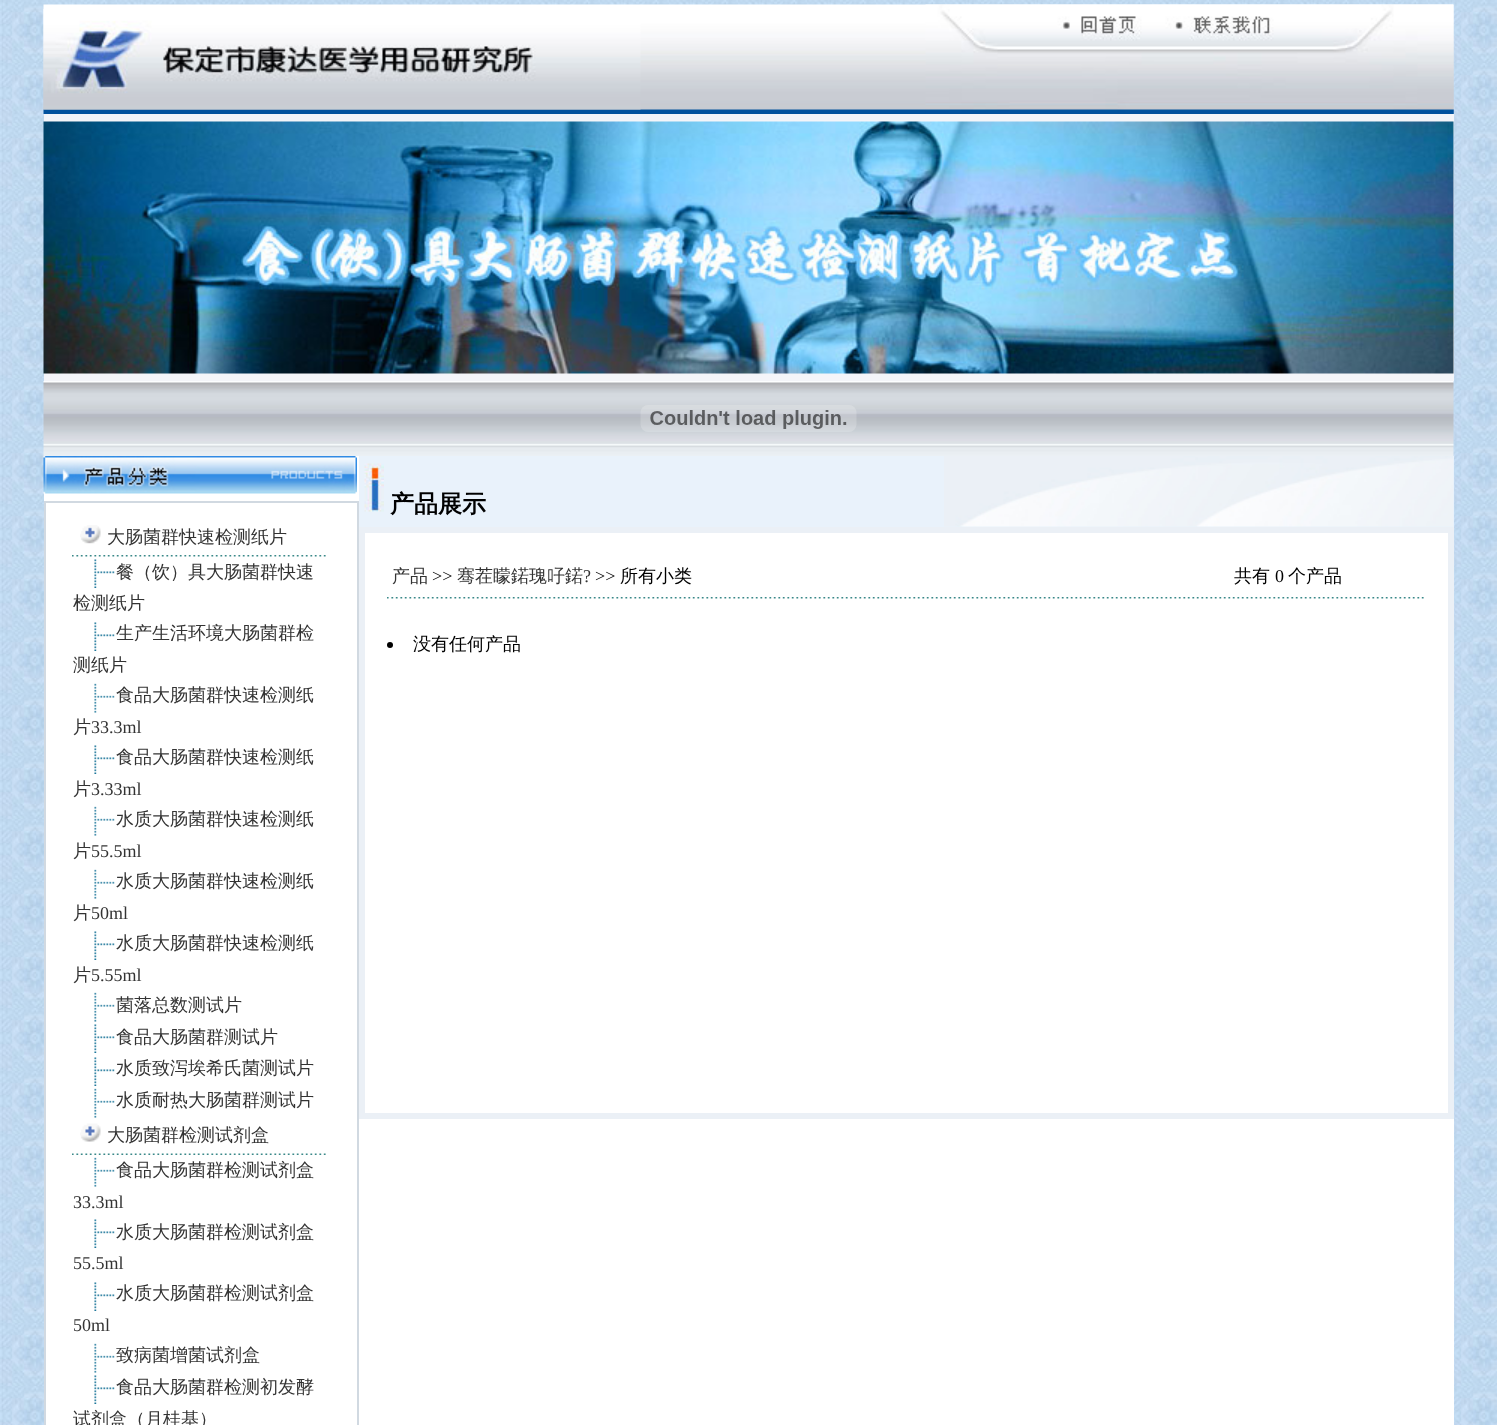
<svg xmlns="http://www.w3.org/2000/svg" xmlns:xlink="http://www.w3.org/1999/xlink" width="1497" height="1425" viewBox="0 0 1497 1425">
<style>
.cls-1{font:500 18px WenQuanYi Zen Hei;fill:#333333}
.cls-2{font:18px Liberation Serif;fill:#333333}
.cls-3{font:bold 24px WenQuanYi Zen Hei;fill:#000000}
.cls-4{font:18px Liberation Serif;fill:#000000}
.cls-5{font:500 18px WenQuanYi Zen Hei;fill:#000000}
</style>
<rect width="100%" height="100%" fill="#ffffff"/>
<image xlink:href="image0.png" x="0" y="0" width="1497" height="1425"/>
<image xlink:href="image1.png" x="43" y="4" width="749" height="110"/>
<image xlink:href="image2.png" x="43" y="9" width="598" height="101"/>
<image xlink:href="image3.png" x="792" y="4" width="662" height="110"/>
<image xlink:href="image4.png" x="925" y="4" width="529" height="110"/>
<rect fill="#f4f5f9" x="44" y="114" width="1410" height="267"/>
<image xlink:href="image5.png" x="43" y="121" width="1411" height="253"/>
<image xlink:href="image6.png" x="43" y="381" width="1411" height="75"/>
<image xlink:href="image7.png" x="640" y="405" width="217" height="27"/>
<rect fill="#ffffff" x="44" y="456" width="1410" height="969"/>
<image xlink:href="image8.png" x="43" y="456" width="314" height="38"/>
<rect fill="none" stroke="#d1d9e1" stroke-width="2" x="45" y="502" width="313" height="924"/>
<image xlink:href="image9.png" x="80" y="525" width="21" height="19"/>
<image xlink:href="image10.png" x="72" y="555" width="254" height="2"/>
<image xlink:href="image11.png" x="94" y="559" width="21" height="29"/>
<image xlink:href="image11.png" x="94" y="622" width="21" height="29"/>
<image xlink:href="image12.png" x="94" y="683" width="21" height="30"/>
<image xlink:href="image11.png" x="94" y="745" width="21" height="29"/>
<image xlink:href="image12.png" x="94" y="806" width="21" height="30"/>
<image xlink:href="image12.png" x="94" y="869" width="21" height="30"/>
<image xlink:href="image11.png" x="94" y="931" width="21" height="29"/>
<image xlink:href="image12.png" x="94" y="992" width="21" height="30"/>
<image xlink:href="image11.png" x="94" y="1024" width="21" height="29"/>
<image xlink:href="image11.png" x="94" y="1057" width="21" height="29"/>
<image xlink:href="image12.png" x="94" y="1088" width="21" height="30"/>
<image xlink:href="image13.png" x="80" y="1123" width="21" height="19"/>
<image xlink:href="image14.png" x="72" y="1153" width="254" height="2"/>
<image xlink:href="image12.png" x="94" y="1157" width="21" height="30"/>
<image xlink:href="image11.png" x="94" y="1219" width="21" height="29"/>
<image xlink:href="image11.png" x="94" y="1282" width="21" height="29"/>
<image xlink:href="image12.png" x="94" y="1343" width="21" height="30"/>
<image xlink:href="image11.png" x="94" y="1375" width="21" height="29"/>
<rect fill="#e9f2fb" x="359" y="456" width="1095" height="71"/>
<image xlink:href="image15.png" x="364" y="463" width="20" height="49"/>
<image xlink:href="image16.png" x="944" y="456" width="509" height="71"/>
<rect fill="none" stroke="#ebf0f6" stroke-width="6" x="362" y="530" width="1089" height="586"/>
<image xlink:href="image17.png" x="387" y="597" width="1037" height="2"/>
<circle fill="#000000" cx="390" cy="645" r="3"/>
<text class="cls-1" x="107" y="543">大肠菌群快速检测纸片</text>
<text class="cls-1" x="116" y="578">餐（饮）具大肠菌群快速</text>
<text class="cls-1" x="73" y="609">检测纸片</text>
<text class="cls-1" x="116" y="639">生产生活环境大肠菌群检</text>
<text class="cls-1" x="73" y="671">测纸片</text>
<text class="cls-1" x="116" y="701">食品大肠菌群快速检测纸</text>
<text class="cls-1" x="73" y="733">片</text>
<text class="cls-2" x="91" y="733">33.3ml</text>
<text class="cls-1" x="116" y="763">食品大肠菌群快速检测纸</text>
<text class="cls-1" x="73" y="795">片</text>
<text class="cls-2" x="91" y="795">3.33ml</text>
<text class="cls-1" x="116" y="825">水质大肠菌群快速检测纸</text>
<text class="cls-1" x="73" y="857">片</text>
<text class="cls-2" x="91" y="857">55.5ml</text>
<text class="cls-1" x="116" y="887">水质大肠菌群快速检测纸</text>
<text class="cls-1" x="73" y="919">片</text>
<text class="cls-2" x="91" y="919">50ml</text>
<text class="cls-1" x="116" y="949">水质大肠菌群快速检测纸</text>
<text class="cls-1" x="73" y="981">片</text>
<text class="cls-2" x="91" y="981">5.55ml</text>
<text class="cls-1"><tspan x="116" y="1011">菌落总数测试片</tspan><tspan x="116" y="1043">食品大肠菌群测试片</tspan><tspan x="116" y="1074">水质致泻埃希氏菌测试片</tspan><tspan x="116" y="1106">水质耐热大肠菌群测试片</tspan></text>
<text class="cls-1" x="107" y="1141">大肠菌群检测试剂盒</text>
<text class="cls-1" x="116" y="1176">食品大肠菌群检测试剂盒</text>
<text class="cls-2" x="73" y="1208">33.3ml</text>
<text class="cls-1" x="116" y="1238">水质大肠菌群检测试剂盒</text>
<text class="cls-2" x="73" y="1269">55.5ml</text>
<text class="cls-1" x="116" y="1299">水质大肠菌群检测试剂盒</text>
<text class="cls-2" x="73" y="1331">50ml</text>
<text class="cls-1"><tspan x="116" y="1361">致病菌增菌试剂盒</tspan><tspan x="116" y="1393">食品大肠菌群检测初发酵</tspan></text>
<text class="cls-1" x="73" y="1425">试剂盒（月桂基）</text>
<text class="cls-3" x="390" y="512">产品展示</text>
<text class="cls-1" x="392" y="582">产品</text>
<text class="cls-4" x="432" y="582">&gt;&gt;</text>
<text class="cls-1" x="457" y="582">骞茬矇鍩瑰吇鍩</text>
<text class="cls-2" x="583" y="582">?</text>
<text class="cls-4" x="595" y="582">&gt;&gt;</text>
<text class="cls-5" x="620" y="582">所有小类</text>
<text class="cls-5" x="1234" y="582">共有</text>
<text class="cls-4" x="1275" y="582">0</text>
<text class="cls-5" x="1288" y="582">个产品</text>
<text class="cls-5" x="413" y="650">没有任何产品</text>
</svg>
